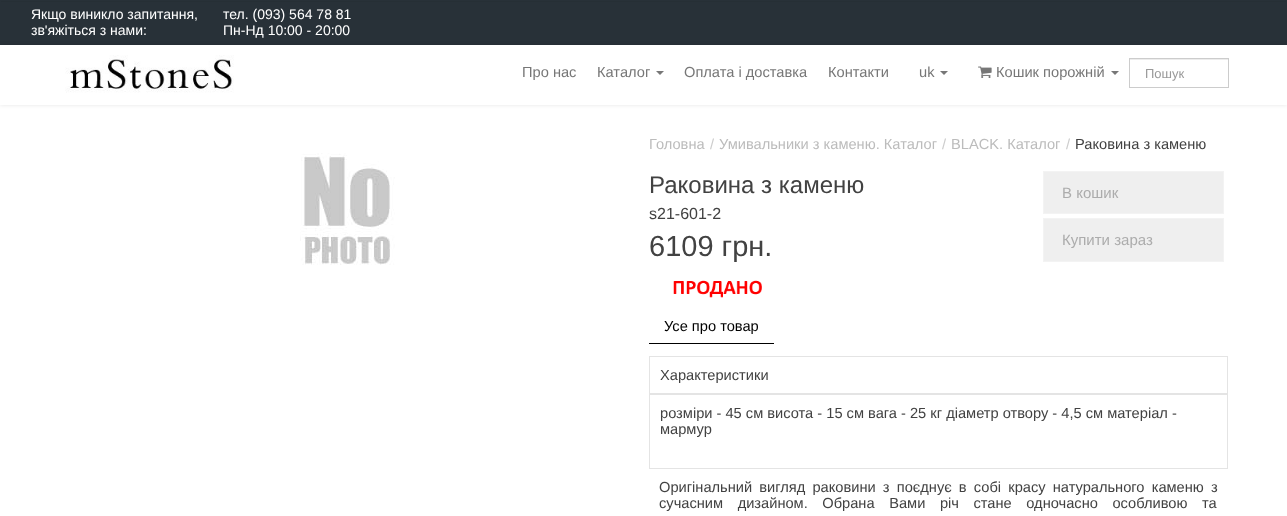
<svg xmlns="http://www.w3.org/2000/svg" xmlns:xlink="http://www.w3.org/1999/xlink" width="1287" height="516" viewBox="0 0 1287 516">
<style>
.cls-1{font:14px Liberation Sans;fill:#ffffff}
.cls-2{font:14.65px Liberation Sans;fill:#777777}
.cls-3{font:13px Liberation Sans;fill:#999999}
.cls-4{font:14.65px Liberation Sans;fill:#bcbcbc}
.cls-5{font:14.65px Liberation Sans;fill:#cccccc}
.cls-6{font:14.65px Liberation Sans;fill:#424242}
.cls-7{font:24px Liberation Sans;fill:#424242}
.cls-8{font:16px Liberation Sans;fill:#424242}
.cls-9{font:29px Liberation Sans;fill:#424242}
.cls-10{font:15px Liberation Sans;fill:#acacac}
.cls-11{font:14.65px Liberation Sans;fill:#000000}
</style>
<defs>
<clipPath id="clip1"><path d="M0 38H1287V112H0ZM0 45H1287V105H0Z" clip-rule="evenodd"/></clipPath>
</defs>
<rect width="100%" height="100%" fill="#ffffff"/>
<rect fill="#283138" x="0" y="0" width="1287" height="45"/>
<rect fill="#262f35" x="1" y="1" width="1285" height="1"/>
<g clip-path="url(#clip1)">
<rect fill="#000000" fill-opacity="0.1" filter="blur(2px)" x="0" y="45" width="1287" height="60"/>
</g>
<image xlink:href="image0.png" x="65" y="55" width="169" height="38"/>
<path fill="#777777" d="M656 71H664L660 75Z"/>
<path fill="#777777" d="M940 71H948L944 75Z"/>
<image xlink:href="image1.png" x="978" y="66" width="14" height="12"/>
<path fill="#777777" d="M1111 71H1119L1115 75Z"/>
<rect fill="#ececec" x="1130" y="59" width="98" height="1"/>
<rect fill="none" stroke="#cccccc" x="1129.5" y="58.5" width="99" height="29"/>
<image xlink:href="image2.png" x="300" y="153" width="95" height="112"/>
<rect fill="#efefef" stroke="#f3f3f3" x="1043.5" y="171.5" width="180" height="42"/>
<rect fill="#efefef" stroke="#f3f3f3" x="1043.5" y="218.5" width="180" height="43"/>
<image xlink:href="image3.png" x="673" y="280" width="89" height="18"/>
<rect fill="#000000" x="649" y="343" width="125" height="1"/>
<rect fill="none" stroke="#e4e4e4" x="649.5" y="356.5" width="578" height="37"/>
<rect fill="none" stroke="#e4e4e4" x="649.5" y="394.5" width="578" height="74"/>
<text class="cls-1"><tspan x="31" y="19">Якщо виникло запитання,</tspan><tspan x="31" y="35">зв'яжіться з нами:</tspan></text>
<text class="cls-1"><tspan x="223" y="19">тел. (093) 564 78 81</tspan><tspan x="223" y="35">Пн-Нд 10:00 - 20:00</tspan></text>
<text class="cls-2" x="522" y="77">Про нас</text>
<text class="cls-2" x="597" y="77">Каталог</text>
<text class="cls-2" x="684" y="77">Оплата і доставка</text>
<text class="cls-2" x="828" y="77">Контакти</text>
<text class="cls-2" x="919" y="77">uk</text>
<text class="cls-2" x="996" y="77">Кошик порожній</text>
<text class="cls-3" x="1145" y="78">Пошук</text>
<text class="cls-4" x="649" y="149">Головна</text>
<text class="cls-5" x="710" y="149">/</text>
<text class="cls-4" x="719" y="149">Умивальники з каменю. Каталог</text>
<text class="cls-5" x="942" y="149">/</text>
<text class="cls-4" x="951" y="149">BLACK. Каталог</text>
<text class="cls-5" x="1066" y="149">/</text>
<text class="cls-6" x="1075" y="149">Раковина з каменю</text>
<text class="cls-7" x="649" y="193">Раковина з каменю</text>
<text class="cls-8" x="649" y="219">s21-601-2</text>
<text class="cls-9" x="649" y="256">6109 грн.</text>
<text class="cls-10" x="1062" y="198">В кошик</text>
<text class="cls-10" x="1062" y="245">Купити зараз</text>
<text class="cls-11" x="664" y="331">Усе про товар</text>
<text class="cls-6" x="660" y="380">Характеристики</text>
<text class="cls-6"><tspan x="660" y="418">розміри - 45 см висота - 15 см вага - 25 кг діаметр отвору - 4,5 см матеріал -</tspan><tspan x="660" y="434">мармур</tspan></text>
<text class="cls-6"><tspan x="659" y="492" word-spacing="3.1">Оригінальний вигляд раковини з поєднує в собі красу натурального каменю з</tspan><tspan x="659" y="508" word-spacing="10.5">сучасним дизайном. Обрана Вами річ стане одночасно особливою та</tspan></text>
</svg>
